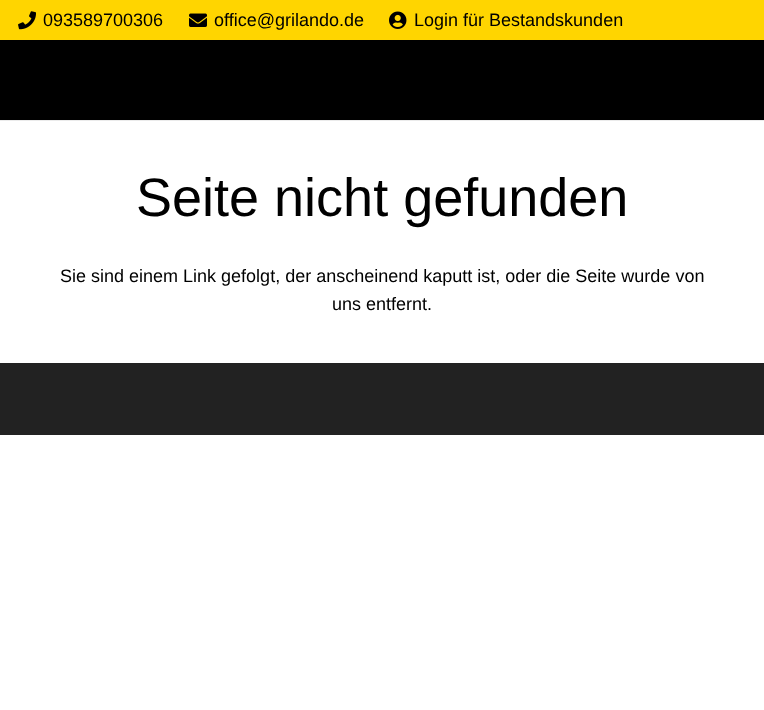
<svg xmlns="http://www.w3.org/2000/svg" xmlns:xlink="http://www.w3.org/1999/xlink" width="764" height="710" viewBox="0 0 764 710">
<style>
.cls-1{font:18px Liberation Sans;fill:#000000}
.cls-2{font:54px Liberation Sans;fill:#000000}
</style>
<rect width="100%" height="100%" fill="#ffffff"/>
<rect fill="#ffd500" x="0" y="0" width="764" height="40"/>
<image xlink:href="image0.png" x="18" y="11" width="18" height="19"/>
<image xlink:href="image1.png" x="189" y="13" width="18" height="14"/>
<image xlink:href="image2.png" x="389" y="11" width="18" height="18"/>
<rect fill="#ebebeb" x="0" y="120" width="764" height="1"/>
<rect fill="#000000" x="0" y="40" width="764" height="80"/>
<rect fill="#222222" x="0" y="363" width="764" height="72"/>
<text class="cls-1" x="43" y="26">093589700306</text>
<text class="cls-1" x="214" y="26">office@grilando.de</text>
<text class="cls-1" x="414" y="26">Login für Bestandskunden</text>
<text class="cls-2" x="136" y="216">Seite nicht gefunden</text>
<text class="cls-1" x="60" y="282">Sie sind einem Link gefolgt, der anscheinend kaputt ist, oder die Seite wurde von</text>
<text class="cls-1" x="332" y="310">uns entfernt.</text>
</svg>
